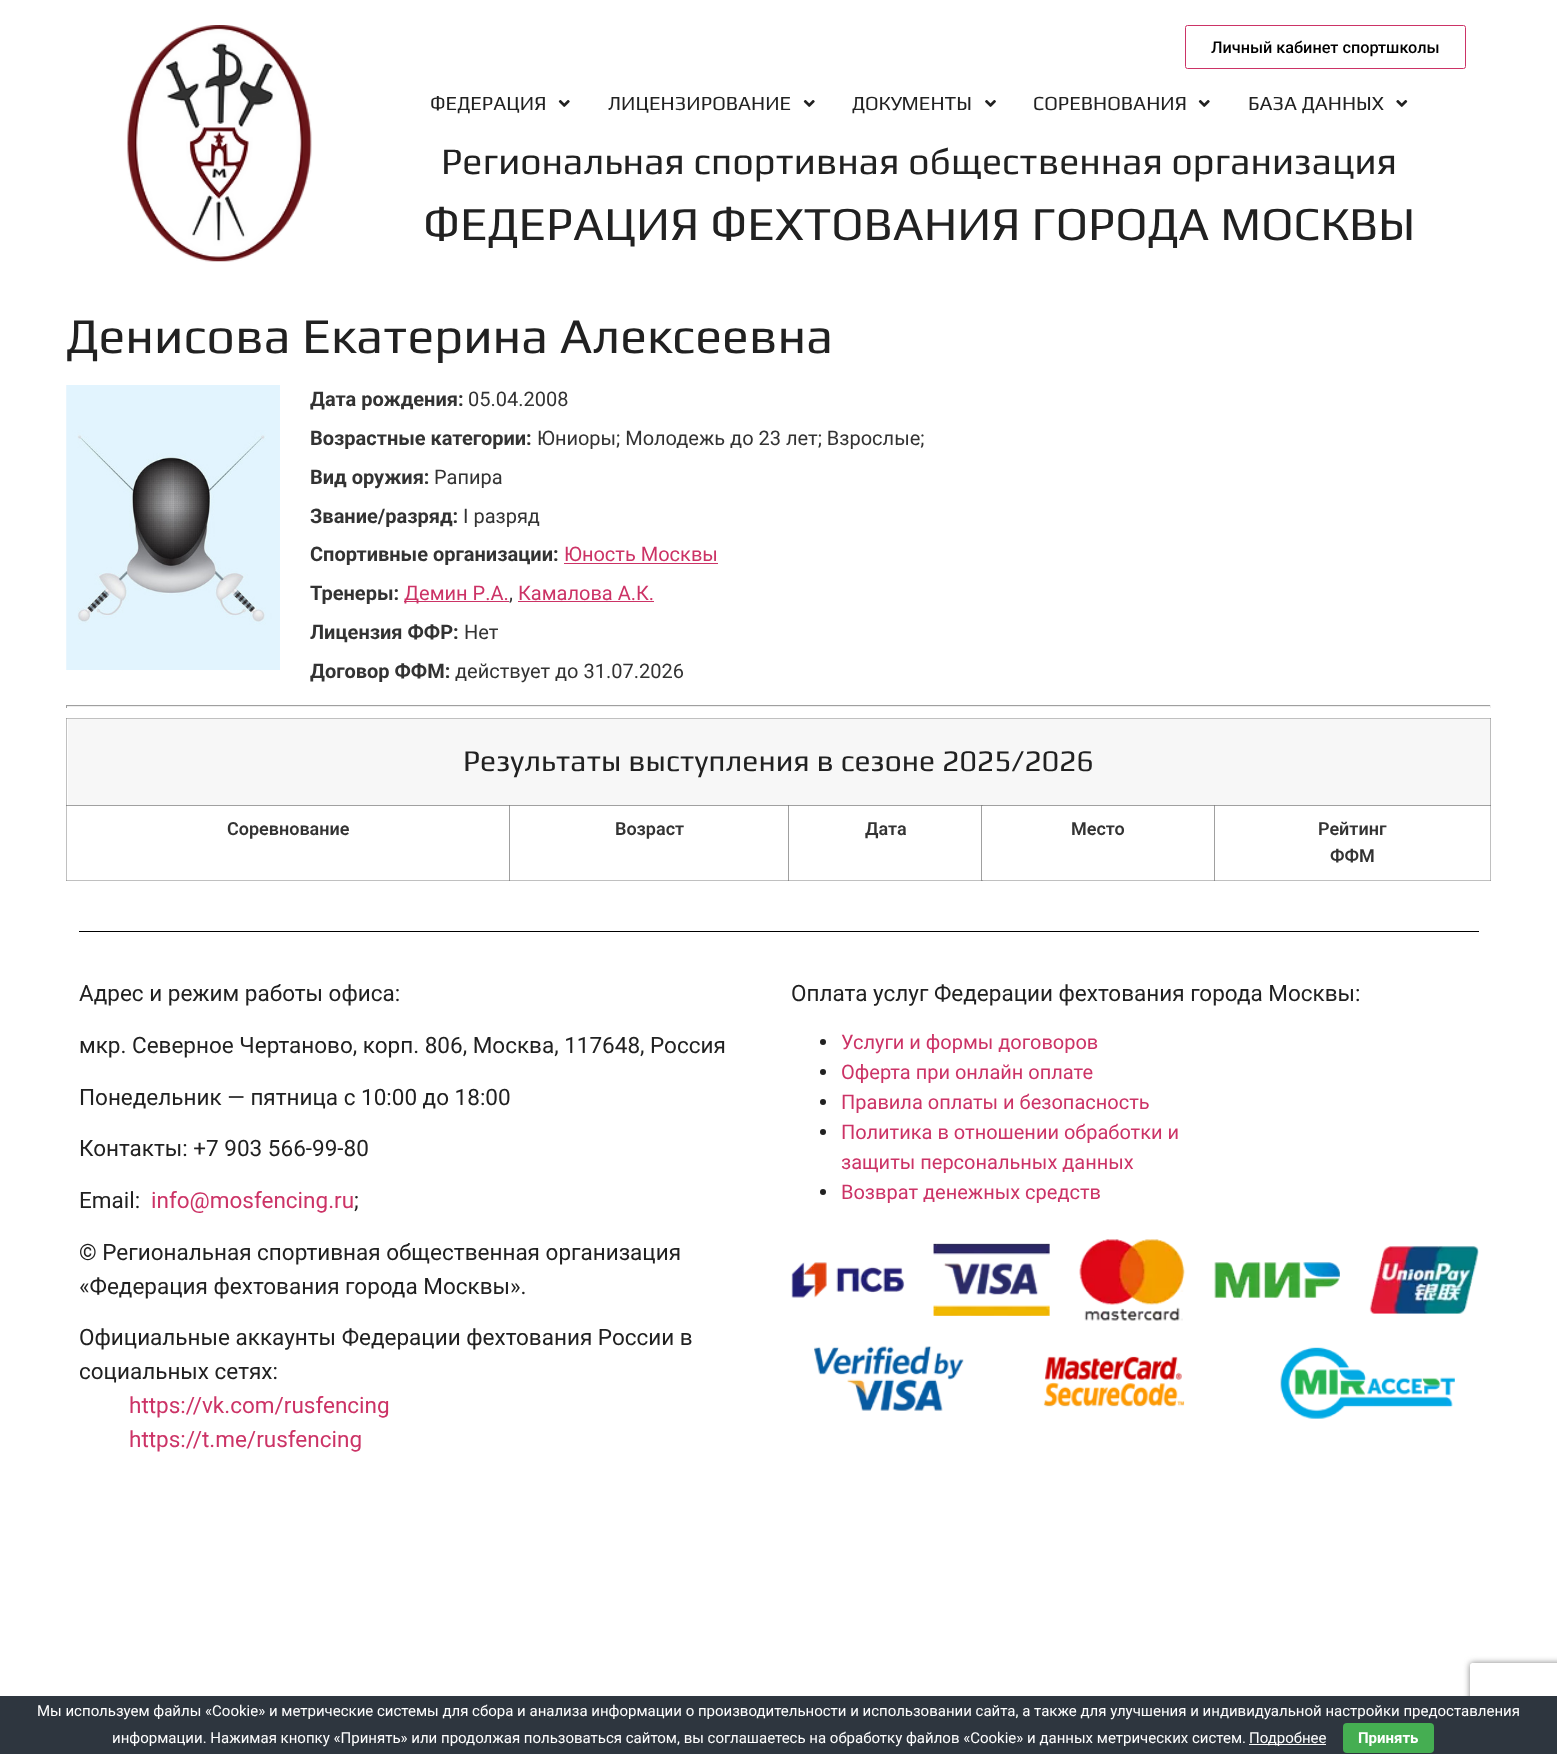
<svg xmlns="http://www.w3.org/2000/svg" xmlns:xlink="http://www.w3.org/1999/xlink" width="1557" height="1754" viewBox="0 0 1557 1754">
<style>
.cls-1{font:500 16.25px Roboto;fill:#000000}
.cls-2{font:20px Play;fill:#212121}
.cls-3{font:37.5px Play;fill:#212121}
.cls-4{font:47.5px Play;fill:#212121}
.cls-5{font:50px Play;fill:#212121}
.cls-6{font:bold 20px Roboto;fill:#333333}
.cls-7{font:20px Roboto;fill:#333333}
.cls-8{font:20px Roboto;fill:#cc3366}
.cls-9{font:30px Play;fill:#212121}
.cls-10{font:600 18px Roboto;fill:#333333}
.cls-11{font:22.5px Roboto;fill:#212121}
.cls-12{font:22.5px Roboto;fill:#cc3366}
.cls-13{font:15px Roboto;fill:#ffffff}
.cls-14{font:bold 15px Roboto;fill:#ffffff}
</style>
<defs>
<clipPath id="clip1"><path d="M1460 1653H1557V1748H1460ZM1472.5 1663H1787.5C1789 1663 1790 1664 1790 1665.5V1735.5C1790 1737 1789 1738 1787.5 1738H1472.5C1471 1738 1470 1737 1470 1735.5V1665.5C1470 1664 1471 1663 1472.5 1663Z" clip-rule="evenodd"/></clipPath>
</defs>
<rect width="100%" height="100%" fill="#ffffff"/>
<rect fill="#c0c0c0" x="66" y="718" width="1" height="163"/>
<rect fill="#c0c0c0" x="66" y="880" width="444" height="1"/>
<rect fill="#a0a0a0" x="66" y="880" width="1" height="1"/>
<rect fill="#a0a0a0" x="66" y="805" width="444" height="1"/>
<rect fill="#888888" x="66" y="805" width="1" height="1"/>
<rect fill="#a0a0a0" x="509" y="805" width="1" height="76"/>
<rect fill="#c0c0c0" x="509" y="880" width="280" height="1"/>
<rect fill="#888888" x="509" y="880" width="1" height="1"/>
<rect fill="#a0a0a0" x="509" y="805" width="280" height="1"/>
<rect fill="#848484" x="509" y="805" width="1" height="1"/>
<rect fill="#a0a0a0" x="788" y="805" width="1" height="76"/>
<rect fill="#c0c0c0" x="788" y="880" width="195" height="1"/>
<rect fill="#888888" x="788" y="880" width="1" height="1"/>
<rect fill="#a0a0a0" x="788" y="805" width="195" height="1"/>
<rect fill="#848484" x="788" y="805" width="1" height="1"/>
<rect fill="#a0a0a0" x="981" y="805" width="1" height="76"/>
<rect fill="#c0c0c0" x="981" y="880" width="234" height="1"/>
<rect fill="#a0a0a0" x="981" y="880" width="2" height="1"/>
<rect fill="#888888" x="981" y="880" width="1" height="1"/>
<rect fill="#a0a0a0" x="981" y="805" width="234" height="1"/>
<rect fill="#909090" x="981" y="805" width="2" height="1"/>
<rect fill="#848484" x="981" y="805" width="1" height="1"/>
<rect fill="#a0a0a0" x="1214" y="805" width="1" height="76"/>
<rect fill="#c0c0c0" x="1214" y="880" width="277" height="1"/>
<rect fill="#888888" x="1214" y="880" width="1" height="1"/>
<rect fill="#c0c0c0" x="1490" y="805" width="1" height="76"/>
<rect fill="#a0a0a0" x="1490" y="880" width="1" height="1"/>
<image xlink:href="image0.png" x="127" y="25" width="185" height="237"/>
<rect fill="none" stroke="#cc3366" x="1185.5" y="25.5" width="280" height="43" rx="2"/>
<image xlink:href="image1.png" x="558" y="100" width="12" height="7"/>
<image xlink:href="image1.png" x="803" y="100" width="12" height="7"/>
<image xlink:href="image2.png" x="985" y="100" width="11" height="7"/>
<image xlink:href="image1.png" x="1198" y="100" width="12" height="7"/>
<image xlink:href="image3.png" x="1396" y="100" width="12" height="7"/>
<image xlink:href="image4.png" x="66" y="385" width="214" height="285"/>
<rect fill="#cc3366" x="564" y="563" width="154" height="1"/>
<rect fill="#cc3366" x="404" y="601" width="105" height="1"/>
<rect fill="#cc3366" x="518" y="601" width="136" height="1"/>
<rect fill="#9f9f9f" x="66" y="705" width="1425" height="1"/>
<rect fill="#eeeeee" x="1490" y="705" width="1" height="3"/>
<rect fill="#eeeeee" x="66" y="706" width="1425" height="1"/>
<rect fill="#9f9f9f" x="66" y="705" width="1" height="3"/>
<rect fill="#f7f7f7" x="68" y="719" width="1422" height="86"/>
<rect fill="#bcbcbc" x="1490" y="719" width="1" height="86"/>
<rect fill="#c0c0c0" x="66" y="718" width="1425" height="1"/>
<rect fill="#a0a0a0" x="66" y="718" width="1" height="1"/>
<rect fill="#a0a0a0" x="1490" y="718" width="1" height="1"/>
<rect fill="#a0a0a0" x="1214" y="805" width="277" height="1"/>
<rect fill="#848484" x="1214" y="805" width="1" height="1"/>
<rect fill="#888888" x="1490" y="805" width="1" height="1"/>
<rect fill="#000000" x="79" y="931" width="1400" height="1"/>
<circle fill="#212121" cx="823" cy="1042" r="3"/>
<circle fill="#212121" cx="823" cy="1072" r="3"/>
<circle fill="#212121" cx="823" cy="1102" r="3"/>
<circle fill="#212121" cx="823" cy="1132" r="3"/>
<circle fill="#212121" cx="823" cy="1192" r="3"/>
<image xlink:href="image5.png" x="791" y="1239" width="688" height="180"/>
<g clip-path="url(#clip1)">
<rect fill="#808080" filter="blur(3px)" x="1470" y="1663" width="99" height="75" rx="2.5"/>
</g>
<rect fill="#2e363f" x="0" y="1696" width="1557" height="58"/>
<rect fill="#ffffff" x="1249" y="1744" width="77" height="1"/>
<rect fill="#45ae52" x="1343" y="1723" width="91" height="30" rx="4"/>
<text class="cls-1" x="1211" y="53">Личный кабинет спортшколы</text>
<text class="cls-2" x="430" y="110">ФЕДЕРАЦИЯ</text>
<text class="cls-2" x="608" y="110">ЛИЦЕНЗИРОВАНИЕ</text>
<text class="cls-2" x="852" y="110">ДОКУМЕНТЫ</text>
<text class="cls-2" x="1033" y="110">СОРЕВНОВАНИЯ</text>
<text class="cls-2" x="1248" y="110">БАЗА ДАННЫХ</text>
<text class="cls-3" x="441" y="174">Региональная спортивная общественная организация</text>
<text class="cls-4" x="423" y="240">ФЕДЕРАЦИЯ ФЕХТОВАНИЯ ГОРОДА МОСКВЫ</text>
<text class="cls-5" x="66" y="353">Денисова Екатерина Алексеевна</text>
<text class="cls-6" x="310" y="406">Дата рождения:</text>
<text class="cls-7" x="468" y="406">05.04.2008</text>
<text class="cls-6" x="310" y="445">Возрастные категории:</text>
<text class="cls-7" x="537" y="445">Юниоры; Молодежь до 23 лет; Взрослые;</text>
<text class="cls-6" x="310" y="484">Вид оружия:</text>
<text class="cls-7" x="434" y="484">Рапира</text>
<text class="cls-6" x="310" y="523">Звание/разряд:</text>
<text class="cls-7" x="463" y="523">I разряд</text>
<text class="cls-6" x="310" y="561">Спортивные организации:</text>
<text class="cls-8" x="564" y="561">Юность Москвы</text>
<text class="cls-6" x="310" y="600">Тренеры:</text>
<text class="cls-8" x="404" y="600">Демин Р.А.</text>
<text class="cls-7" x="509" y="600">,</text>
<text class="cls-8" x="518" y="600">Камалова А.К.</text>
<text class="cls-6" x="310" y="639">Лицензия ФФР:</text>
<text class="cls-7" x="464" y="639">Нет</text>
<text class="cls-6" x="310" y="678">Договор ФФМ:</text>
<text class="cls-7" x="455" y="678">действует до 31.07.2026</text>
<text class="cls-9" x="463" y="771">Результаты выступления в сезоне 2025/2026</text>
<text class="cls-10" x="227" y="835">Соревнование</text>
<text class="cls-10" x="615" y="835">Возраст</text>
<text class="cls-10" x="865" y="835">Дата</text>
<text class="cls-10" x="1071" y="835">Место</text>
<text class="cls-10" x="1318" y="835">Рейтинг</text>
<text class="cls-10" x="1330" y="862">ФФМ</text>
<text class="cls-11" x="79" y="1001">Адрес и режим работы офиса:</text>
<text class="cls-11" x="79" y="1053">мкр. Северное Чертаново, корп. 806, Москва, 117648, Россия</text>
<text class="cls-11" x="79" y="1105">Понедельник — пятница с 10:00 до 18:00</text>
<text class="cls-11" x="79" y="1156">Контакты: +7 903 566-99-80</text>
<text class="cls-11" x="79" y="1208">Email:</text>
<text class="cls-12" x="151" y="1208">info@mosfencing.ru</text>
<text class="cls-11" x="354" y="1208">;</text>
<text class="cls-11"><tspan x="79" y="1260">© Региональная спортивная общественная организация</tspan><tspan x="79" y="1294">«Федерация фехтования города Москвы».</tspan></text>
<text class="cls-11"><tspan x="79" y="1345">Официальные аккаунты Федерации фехтования России в</tspan><tspan x="79" y="1379">социальных сетях:</tspan></text>
<text class="cls-12"><tspan x="129" y="1413">https://vk.com/rusfencing</tspan><tspan x="129" y="1447">https://t.me/rusfencing</tspan></text>
<text class="cls-11" x="791" y="1001">Оплата услуг Федерации фехтования города Москвы:</text>
<text class="cls-8"><tspan x="841" y="1049">Услуги и формы договоров</tspan><tspan x="841" y="1079">Оферта при онлайн оплате</tspan><tspan x="841" y="1109">Правила оплаты и безопасность</tspan><tspan x="841" y="1139">Политика в отношении обработки и</tspan><tspan x="841" y="1169">защиты персональных данных</tspan><tspan x="841" y="1199">Возврат денежных средств</tspan></text>
<text class="cls-13" x="37" y="1716">Мы используем файлы «Cookie» и метрические системы для сбора и анализа информации о производительности и использовании сайта, а также для улучшения и индивидуальной настройки предоставления</text>
<text class="cls-13" x="112" y="1743">информации. Нажимая кнопку «Принять» или продолжая пользоваться сайтом, вы соглашаетесь на обработку файлов «Cookie» и данных метрических систем.</text>
<text class="cls-13" x="1249" y="1743">Подробнее</text>
<text class="cls-14" x="1358" y="1743">Принять</text>
</svg>
